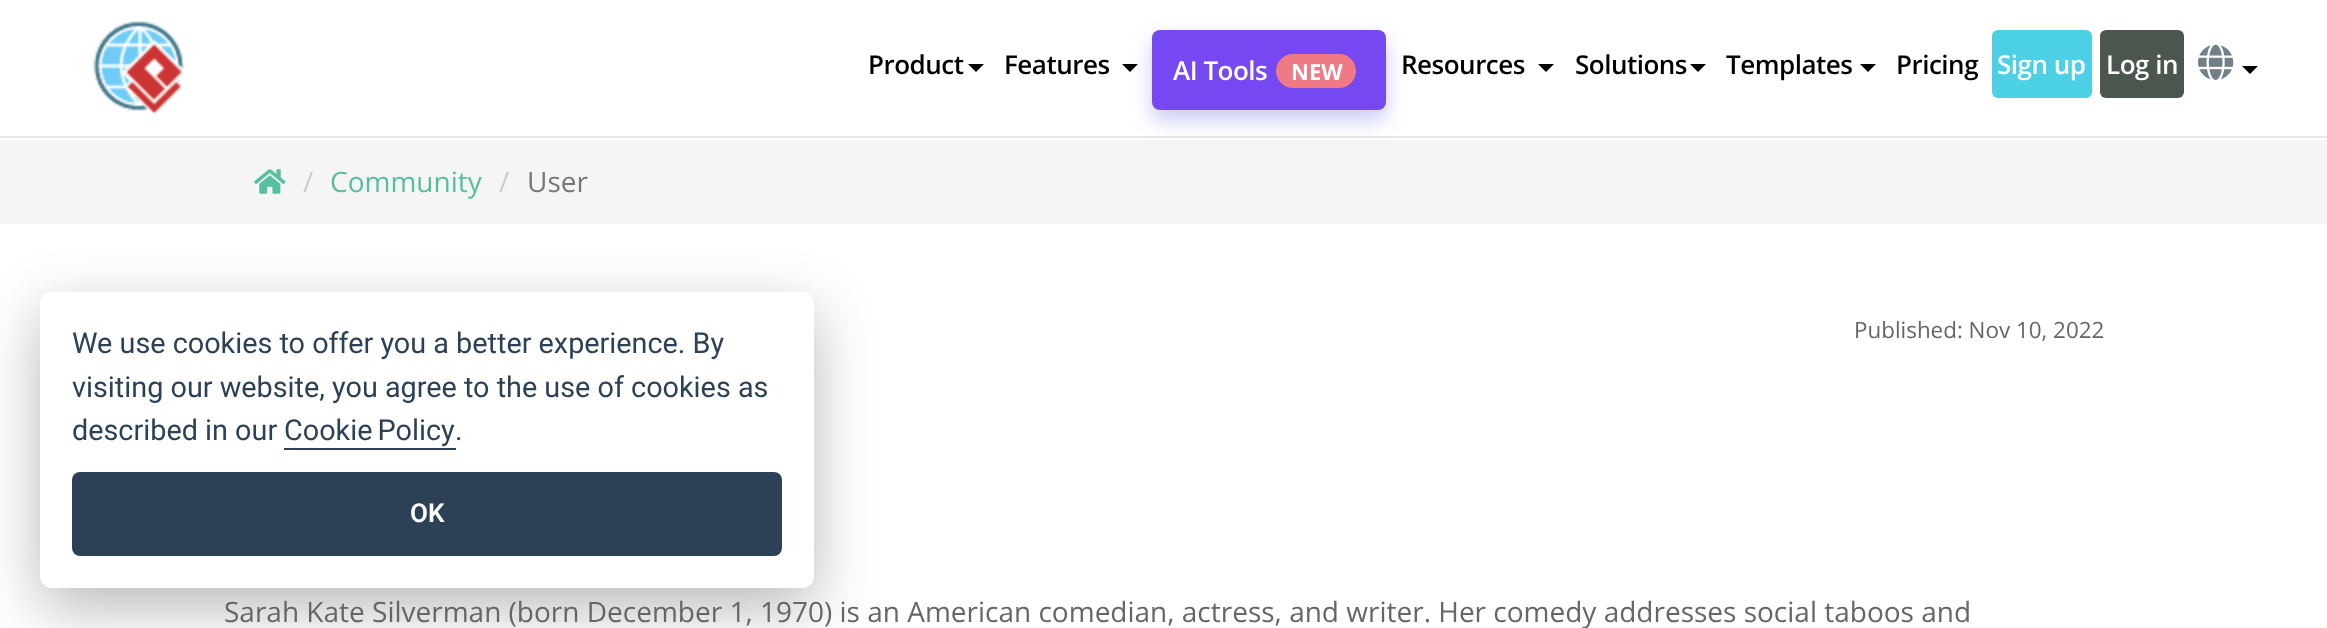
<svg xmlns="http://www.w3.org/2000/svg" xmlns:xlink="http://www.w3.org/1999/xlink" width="2327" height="628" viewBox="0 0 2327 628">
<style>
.cls-1{font:600 26px Open Sans;letter-spacing:-0.5px;fill:#000000}
.cls-2{font:600 26px Open Sans;letter-spacing:-0.5px;fill:#ffffff}
.cls-3{font:bold 22px Open Sans;fill:#ffffff}
.cls-4{font:28px Open Sans;fill:#cccccc}
.cls-5{font:28px Open Sans;fill:#57bea2}
.cls-6{font:28px Open Sans;fill:#777777}
.cls-7{font:22.4px Open Sans;fill:#666666}
.cls-8{font:28px Open Sans;fill:#666666}
.cls-9{font:28.8px Roboto;fill:#2d4156}
.cls-10{font:600 26px Roboto;fill:#ffffff}
</style>
<rect width="100%" height="100%" fill="#ffffff"/>
<rect fill="#e7e7e7" x="0" y="136" width="2327" height="2"/>
<image xlink:href="image0.png" x="93" y="21" width="92" height="94"/>
<path fill="#000000" d="M968 64H984L976 72Z"/>
<path fill="#000000" d="M1122 64H1138L1130 72Z"/>
<rect fill="#f5f5f5" x="0" y="140" width="2327" height="84"/>
<rect fill="#4c4ee5" fill-opacity="0.3" filter="blur(10px)" x="1152" y="40" width="234" height="80" rx="8"/>
<rect fill="#7548f1" x="1152" y="30" width="234" height="80" rx="8"/>
<rect fill="#ef7a85" x="1276" y="54" width="80" height="34" rx="17"/>
<path fill="#000000" d="M1538 64H1554L1546 72Z"/>
<path fill="#000000" d="M1690 64H1706L1698 72Z"/>
<path fill="#000000" d="M1860 64H1876L1868 72Z"/>
<rect fill="#4cd0e5" x="1992" y="30" width="100" height="68" rx="6"/>
<rect fill="#4a564e" x="2100" y="30" width="84" height="68" rx="6"/>
<image xlink:href="image1.png" x="2198" y="44" width="36" height="36"/>
<path fill="#000000" d="M2242 66H2258L2250 74Z"/>
<image xlink:href="image2.png" x="254" y="169" width="32" height="25"/>
<rect fill="#020203" fill-opacity="0.28" filter="blur(30px)" x="40" y="312" width="774" height="296" rx="12"/>
<rect fill="#ffffff" x="40" y="292" width="774" height="296" rx="12"/>
<rect fill="#2d4156" x="284" y="448" width="172" height="2"/>
<rect fill="#2d4156" x="72" y="472" width="710" height="84" rx="8"/>
<text class="cls-1" x="868" y="74">Product</text>
<text class="cls-1" x="1004" y="74">Features</text>
<text class="cls-2" x="1173" y="80">AI Tools</text>
<text class="cls-3" x="1291" y="80">NEW</text>
<text class="cls-1" x="1401" y="74">Resources</text>
<text class="cls-1" x="1575" y="74">Solutions</text>
<text class="cls-1" x="1726" y="74">Templates</text>
<text class="cls-1" x="1896" y="74">Pricing</text>
<text class="cls-2" x="1997" y="74">Sign up</text>
<text class="cls-2" x="2106" y="74">Log in</text>
<text class="cls-4" x="303" y="192">/</text>
<text class="cls-5" x="330" y="192">Community</text>
<text class="cls-4" x="499" y="192">/</text>
<text class="cls-6" x="527" y="192">User</text>
<text class="cls-7" x="1854" y="338">Published: Nov 10, 2022</text>
<text class="cls-8" x="224" y="622">Sarah Kate Silverman (born December 1, 1970) is an American comedian, actress, and writer. Her comedy addresses social taboos and</text>
<text class="cls-9"><tspan x="72" y="353">We use cookies to offer you a better experience. By</tspan><tspan x="72" y="397">visiting our website, you agree to the use of cookies as</tspan><tspan x="72" y="440">described in our</tspan></text>
<text class="cls-9" x="284" y="440" word-spacing="-2">Cookie Policy</text>
<text class="cls-9" x="455" y="440">.</text>
<text class="cls-10" x="410" y="522">OK</text>
</svg>
